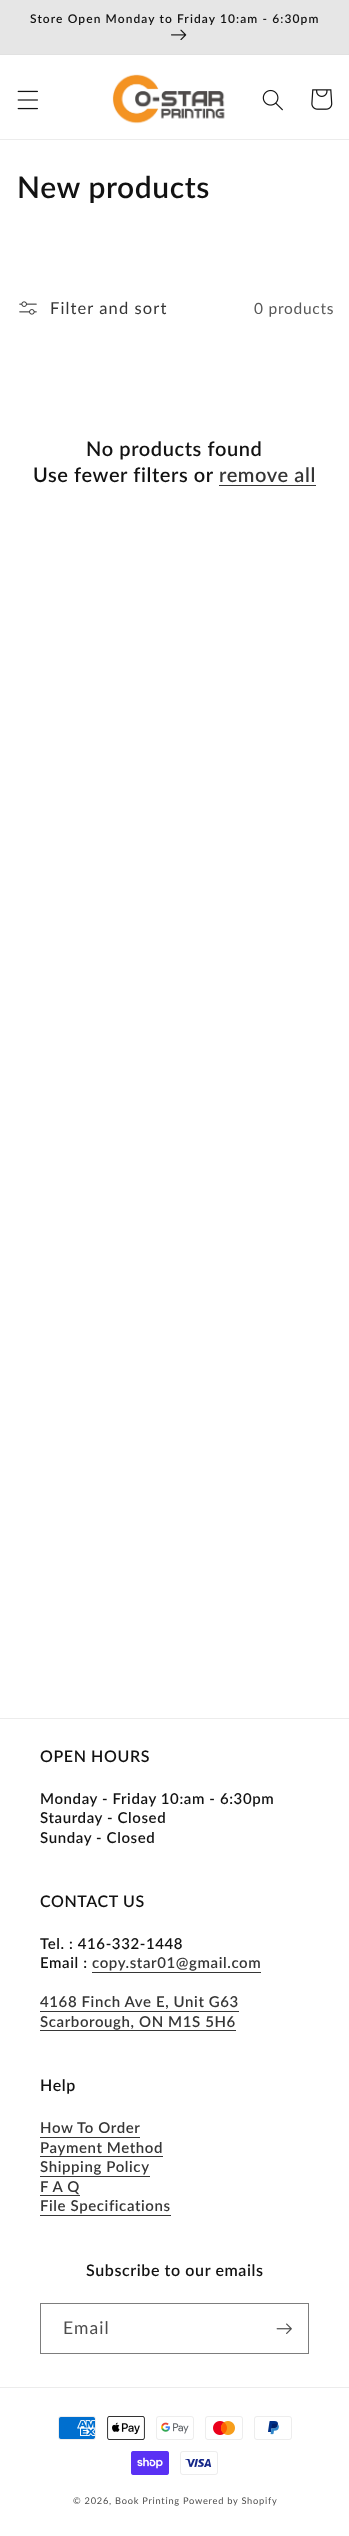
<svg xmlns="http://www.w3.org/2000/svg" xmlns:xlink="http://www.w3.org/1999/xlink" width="349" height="2536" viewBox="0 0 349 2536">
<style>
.cls-1{font:600 12px Lato;letter-spacing:1.1px;fill:#121212}
.cls-2{font:600 30px Lato;letter-spacing:0.6px;fill:#121212}
.cls-3{font:16.5px Lato;letter-spacing:1.1px;fill:#363636}
.cls-4{font:15.5px Lato;letter-spacing:0.75px;fill:#595959}
.cls-5{font:600 20px Lato;letter-spacing:0.6px;fill:#121212}
.cls-6{font:600 20px Lato;letter-spacing:0.6px;fill:#363636}
.cls-7{font:600 16px Lato;letter-spacing:0.6px;fill:#121212}
.cls-8{font:600 15px Lato;letter-spacing:0.6px;fill:#121212}
.cls-9{font:600 15px Lato;letter-spacing:0.6px;fill:#363636}
.cls-10{font:17.5px Lato;letter-spacing:1.1px;fill:#4d4d4d}
.cls-11{font:9.25px Lato;letter-spacing:0.75px;fill:#4d4d4d}
</style>
<rect width="100%" height="100%" fill="#ffffff"/>
<rect fill="#e1e1e1" x="0" y="54" width="349" height="1"/>
<rect fill="#e6e6e6" x="0" y="0" width="349" height="54"/>
<image xlink:href="image0.png" x="171" y="29" width="16" height="11"/>
<rect fill="#ececec" x="0" y="139" width="349" height="1"/>
<image xlink:href="image1.png" x="17" y="90" width="21" height="20"/>
<image xlink:href="image2.png" x="112" y="74" width="113" height="50"/>
<image xlink:href="image3.png" x="262" y="89" width="21" height="22"/>
<image xlink:href="image4.png" x="311" y="89" width="22" height="21"/>
<image xlink:href="image5.png" x="19" y="301" width="18" height="14"/>
<rect fill="#363636" x="219" y="485" width="97" height="1"/>
<rect fill="#ececec" x="0" y="1718" width="349" height="1"/>
<rect fill="#363636" x="92" y="1972" width="169" height="1"/>
<rect fill="#363636" x="40" y="2011" width="199" height="1"/>
<rect fill="#363636" x="40" y="2030" width="196" height="1"/>
<rect fill="#363636" x="40" y="2137" width="100" height="1"/>
<rect fill="#363636" x="40" y="2156" width="123" height="1"/>
<rect fill="#363636" x="40" y="2176" width="110" height="1"/>
<rect fill="#363636" x="40" y="2195" width="40" height="1"/>
<rect fill="#363636" x="40" y="2215" width="131" height="1"/>
<rect fill="none" stroke="#7d7d7d" x="40.5" y="2303.5" width="268" height="50"/>
<image xlink:href="image6.png" x="276" y="2323" width="16" height="11"/>
<rect fill="#ececec" x="0" y="2387" width="349" height="1"/>
<image xlink:href="image7.png" x="58" y="2416" width="38" height="24"/>
<image xlink:href="image8.png" x="107" y="2416" width="38" height="24"/>
<image xlink:href="image9.png" x="156" y="2416" width="38" height="24"/>
<image xlink:href="image10.png" x="205" y="2416" width="38" height="24"/>
<image xlink:href="image11.png" x="254" y="2416" width="38" height="24"/>
<image xlink:href="image12.png" x="131" y="2451" width="38" height="24"/>
<image xlink:href="image13.png" x="180" y="2451" width="38" height="24"/>
<text class="cls-1" x="30" y="23">Store Open Monday to Friday 10:am - 6:30pm</text>
<text class="cls-2" x="17" y="198">New products</text>
<text class="cls-3" x="50" y="314">Filter and sort</text>
<text class="cls-4" x="254" y="314">0 products</text>
<text class="cls-5" x="86" y="456">No products found</text>
<text class="cls-5" x="33" y="482">Use fewer filters or</text>
<text class="cls-6" x="219" y="482">remove all</text>
<text class="cls-7" x="40" y="1762">OPEN HOURS</text>
<text class="cls-8"><tspan x="40" y="1804">Monday - Friday 10:am - 6:30pm</tspan><tspan x="40" y="1823">Staurday - Closed</tspan><tspan x="40" y="1843">Sunday - Closed</tspan></text>
<text class="cls-7" x="40" y="1907">CONTACT US</text>
<text class="cls-8"><tspan x="40" y="1949">Tel. : 416-332-1448</tspan><tspan x="40" y="1968">Email :</tspan></text>
<text class="cls-9" x="92" y="1968">copy.star01@gmail.com</text>
<text class="cls-9"><tspan x="40" y="2007">4168 Finch Ave E, Unit G63</tspan><tspan x="40" y="2027">Scarborough, ON M1S 5H6</tspan></text>
<text class="cls-7" x="40" y="2091">Help</text>
<text class="cls-9"><tspan x="40" y="2133">How To Order</tspan><tspan x="40" y="2153">Payment Method</tspan><tspan x="40" y="2172">Shipping Policy</tspan><tspan x="40" y="2192">F A Q</tspan><tspan x="40" y="2211">File Specifications</tspan></text>
<text class="cls-7" x="86" y="2276">Subscribe to our emails</text>
<text class="cls-10" x="63" y="2334">Email</text>
<text class="cls-11" x="73" y="2504">© 2026, Book Printing</text>
<text class="cls-11" x="183" y="2504">Powered by Shopify</text>
</svg>
